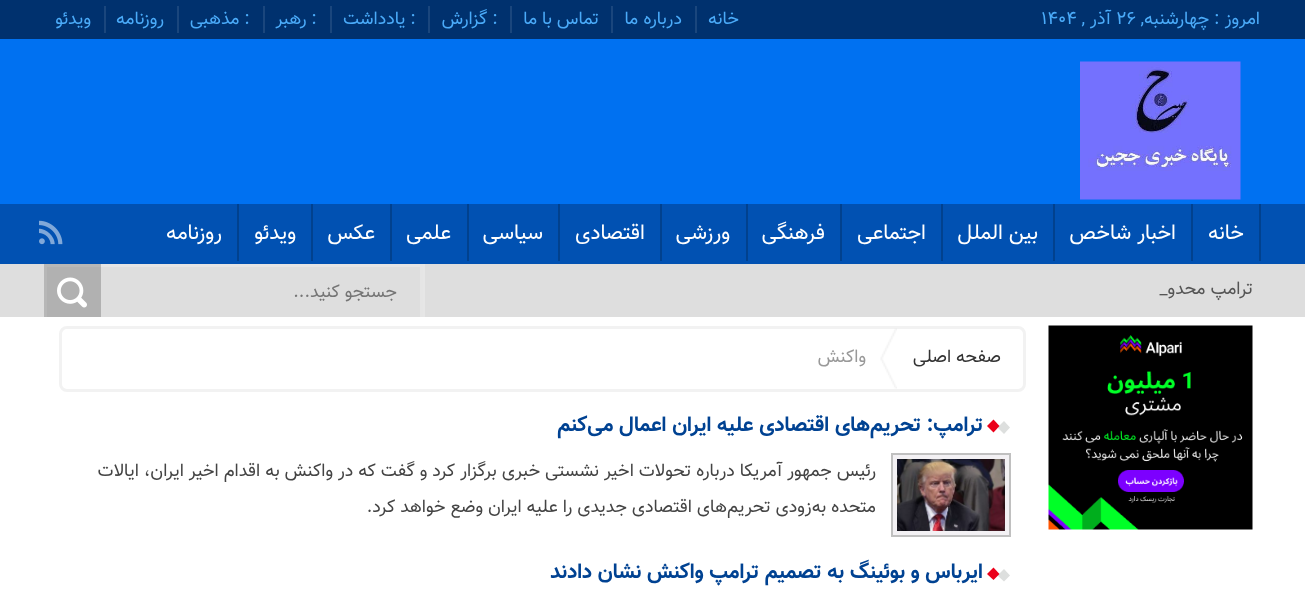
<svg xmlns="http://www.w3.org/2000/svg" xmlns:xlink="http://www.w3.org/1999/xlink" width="1305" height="595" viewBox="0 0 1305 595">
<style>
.cls-1{font:18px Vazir;direction:rtl;fill:#4aabf9}
.cls-2{font:18px Vazir;fill:#4aabf9}
.cls-3{font:21px Vazir;direction:rtl;fill:#ffffff}
.cls-4{font:18px Vazir;direction:rtl;fill:#555555}
.cls-5{font:18px Vazir;direction:rtl;fill:#757575}
.cls-6{font:18px Vazir;direction:rtl;fill:#333333}
.cls-7{font:18px Vazir;direction:rtl;fill:#999999}
.cls-8{font:bold 21px Vazir;direction:rtl;fill:#004292}
.cls-9{font:18px Vazir;direction:rtl;fill:#444444}
</style>
<defs>
<clipPath id="clip1"><rect x="0" y="264" width="1305" height="53"/></clipPath>
</defs>
<rect width="100%" height="100%" fill="#ffffff"/>
<rect fill="#00316e" x="0" y="0" width="1305" height="39"/>
<rect fill="#1a467d" x="695" y="6" width="2" height="27"/>
<rect fill="#1a467d" x="611" y="6" width="2" height="27"/>
<rect fill="#1a467d" x="510" y="6" width="2" height="27"/>
<rect fill="#1a467d" x="428" y="6" width="2" height="27"/>
<rect fill="#1a467d" x="330" y="6" width="2" height="27"/>
<rect fill="#1a467d" x="263" y="6" width="2" height="27"/>
<rect fill="#1a467d" x="177" y="6" width="2" height="27"/>
<rect fill="#1a467d" x="104" y="6" width="2" height="27"/>
<rect fill="#0071f1" x="0" y="39" width="1305" height="165"/>
<image xlink:href="image0.png" x="1080" y="61" width="161" height="139"/>
<rect fill="#0151b2" x="0" y="204" width="1305" height="60"/>
<rect fill="#01418e" x="1259" y="204" width="2" height="57"/>
<rect fill="#01418e" x="1191" y="204" width="2" height="57"/>
<rect fill="#01418e" x="1053" y="204" width="2" height="57"/>
<rect fill="#01418e" x="941" y="204" width="2" height="57"/>
<rect fill="#01418e" x="840" y="204" width="2" height="57"/>
<rect fill="#01418e" x="746" y="204" width="2" height="57"/>
<rect fill="#01418e" x="660" y="204" width="2" height="57"/>
<rect fill="#01418e" x="558" y="204" width="2" height="57"/>
<rect fill="#01418e" x="467" y="204" width="2" height="57"/>
<rect fill="#01418e" x="390" y="204" width="2" height="57"/>
<rect fill="#01418e" x="311" y="204" width="2" height="57"/>
<rect fill="#01418e" x="237" y="204" width="2" height="57"/>
<image xlink:href="image1.png" x="39" y="220" width="24" height="25"/>
<rect fill="#dedede" x="0" y="264" width="1305" height="53"/>
<rect fill="#e6e6e6" x="423" y="264" width="2" height="53"/>
<g clip-path="url(#clip1)">
<rect fill="none" stroke="#e5e5e5" stroke-width="3" x="45.5" y="265.5" width="376" height="54"/>
</g>
<rect fill="#000000" fill-opacity="0.2" x="44" y="264" width="57" height="53"/>
<image xlink:href="image2.png" x="57" y="277" width="30" height="31"/>
<image xlink:href="image3.png" x="1048" y="325" width="205" height="205"/>
<rect fill="none" stroke="#f2f2f2" stroke-width="3" x="60.5" y="327.5" width="964" height="63" rx="6.5"/>
<image xlink:href="image4.png" x="880" y="328" width="17" height="61"/>
<path fill="#dddfde" d="M1004 421L1010 427.5L1004 434L997.5 427.5Z"/>
<path fill="#eb001a" d="M993.5 419.5L999.5 426L993.5 432.5L987 426Z"/>
<rect fill="#f3f1f4" stroke="#c0c0c0" stroke-width="2" x="892" y="454" width="118" height="82"/>
<image xlink:href="image5.png" x="897" y="459" width="108" height="72"/>
<path fill="#dddfde" d="M1004 569L1010 575.5L1004 581.5L997.5 575.5Z"/>
<path fill="#eb001a" d="M993.5 567.5L999.5 574L993.5 580L987 574Z"/>
<text class="cls-1" x="1260" y="24">امروز : چهارشنبه,</text>
<text class="cls-2" x="1116" y="24">۲۶</text>
<text class="cls-1" x="1111" y="24">آذر ,</text>
<text class="cls-2" x="1041" y="24">۱۴۰۴</text>
<text class="cls-1" x="739" y="24">خانه</text>
<text class="cls-1" x="682" y="24">درباره ما</text>
<text class="cls-1" x="599" y="24">تماس با ما</text>
<text class="cls-1" x="498" y="24">: گزارش</text>
<text class="cls-1" x="416" y="24">: یادداشت</text>
<text class="cls-1" x="317" y="24">: رهبر</text>
<text class="cls-1" x="250" y="24">: مذهبی</text>
<text class="cls-1" x="164" y="24">روزنامه</text>
<text class="cls-1" x="91" y="24">ویدئو</text>
<text class="cls-3" x="1244" y="239">خانه</text>
<text class="cls-3" x="1176" y="239">اخبار شاخص</text>
<text class="cls-3" x="1038" y="239">بین الملل</text>
<text class="cls-3" x="926" y="239">اجتماعی</text>
<text class="cls-3" x="825" y="239">فرهنگی</text>
<text class="cls-3" x="730" y="239">ورزشی</text>
<text class="cls-3" x="645" y="239">اقتصادی</text>
<text class="cls-3" x="543" y="239">سیاسی</text>
<text class="cls-3" x="451" y="239">علمی</text>
<text class="cls-3" x="375" y="239">عکس</text>
<text class="cls-3" x="296" y="239">ویدئو</text>
<text class="cls-3" x="222" y="239">روزنامه</text>
<text class="cls-4" x="1253" y="294">ترامپ محدو_</text>
<text class="cls-5" x="397" y="297">جستجو کنید...</text>
<text class="cls-6" x="1001" y="362">صفحه اصلی</text>
<text class="cls-7" x="866" y="362">واکنش</text>
<text class="cls-8" x="983" y="431">ترامپ: تحریم‌های اقتصادی علیه ایران اعمال می‌کنم</text>
<text class="cls-9" x="876" y="476">رئیس جمهور آمریکا درباره تحولات اخیر نشستی خبری برگزار کرد و گفت که در واکنش به اقدام اخیر ایران، ایالات</text>
<text class="cls-9" x="876" y="512">متحده به‌زودی تحریم‌های اقتصادی جدیدی را علیه ایران وضع خواهد کرد.</text>
<text class="cls-8" x="983" y="578">ایرباس و بوئینگ به تصمیم ترامپ واکنش نشان دادند</text>
</svg>
